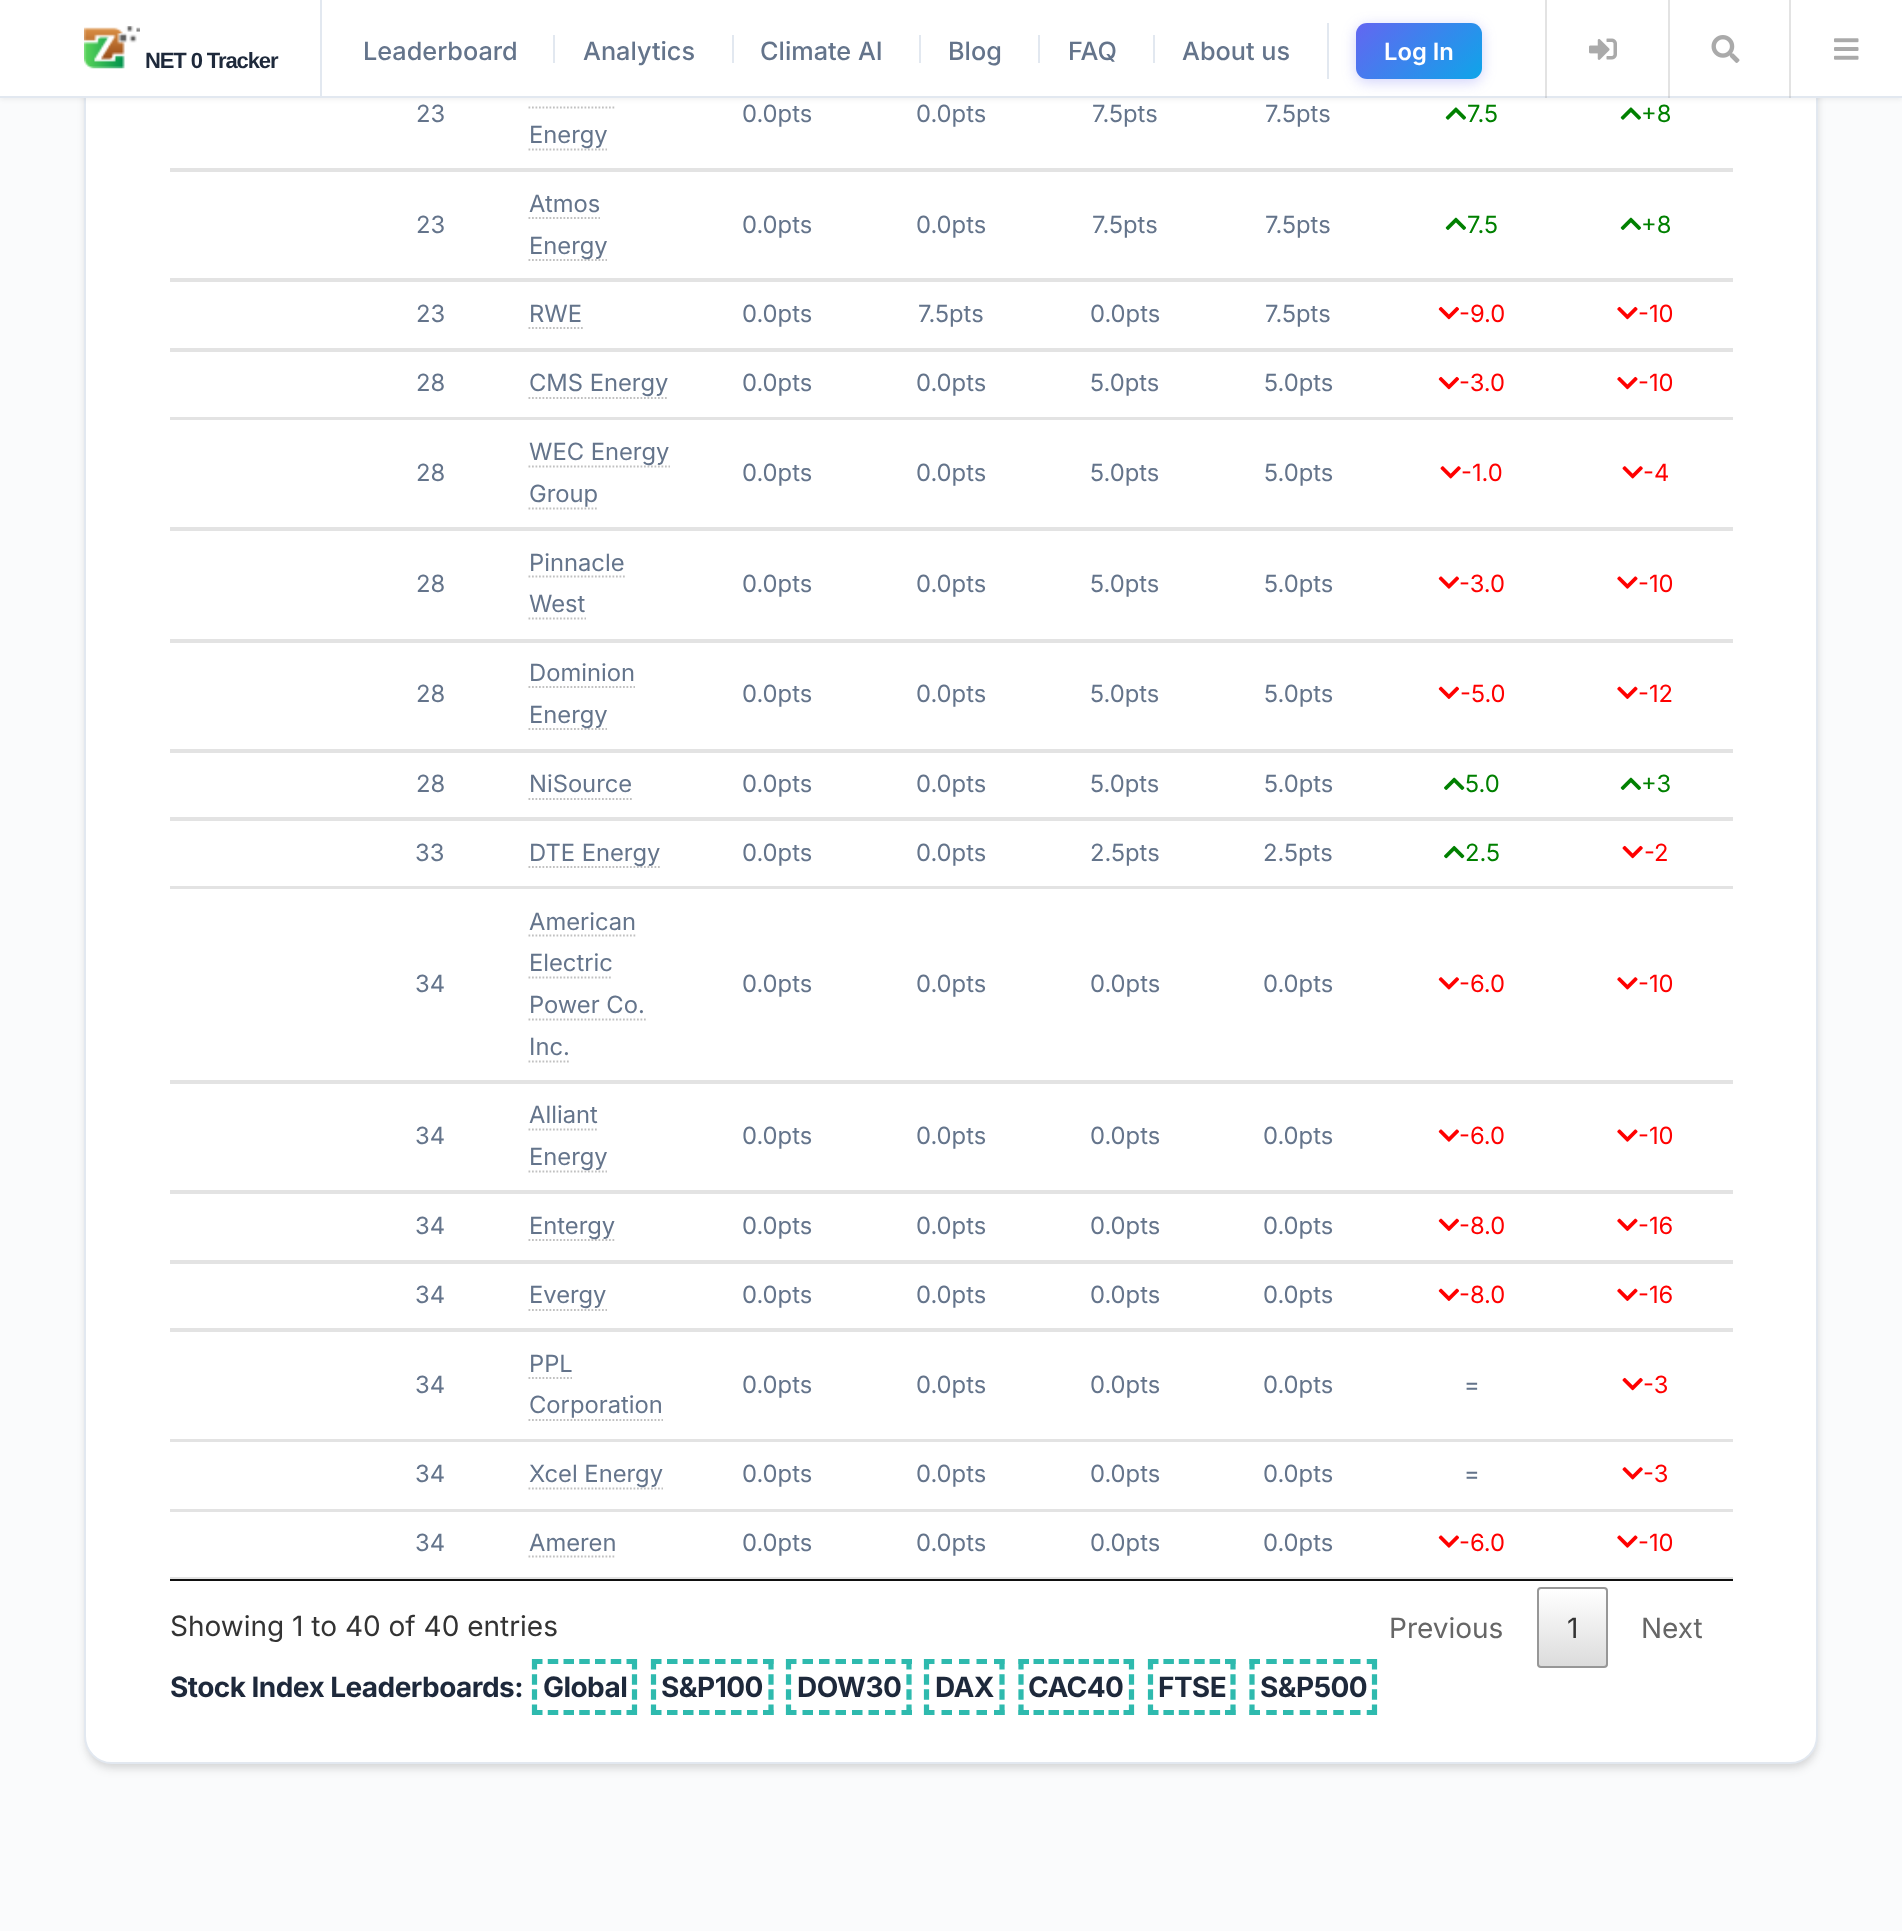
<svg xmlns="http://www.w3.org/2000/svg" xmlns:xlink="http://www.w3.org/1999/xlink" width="1902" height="1931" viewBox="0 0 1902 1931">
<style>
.cls-1{font:bold 22px Liberation Sans;letter-spacing:-1.1px;fill:#1e293b}
.cls-2{font:500 25.25px Inter;fill:#64748b}
.cls-3{font:600 23.75px Inter;fill:#ffffff}
.cls-4{font:23.75px Inter;fill:#64748b}
.cls-5{font:23.75px Inter;fill:#008000}
.cls-6{font:23.75px Inter;fill:#ff0000}
.cls-7{font:28px Inter;fill:#333333}
.cls-8{font:28px Inter;fill:#666666}
.cls-9{font:bold 28px Inter;letter-spacing:-0.55px;fill:#1e293b}
</style>
<defs>
<linearGradient id="g1" gradientUnits="userSpaceOnUse" x1="1374" y1="5.3" x2="1465" y2="96"><stop offset="0" stop-color="#6366f1"/><stop offset="1" stop-color="#0ea5e9"/></linearGradient>
<clipPath id="clip1"><rect x="1537" y="1587" width="71" height="81" rx="4"/></clipPath>
<linearGradient id="g2" gradientUnits="userSpaceOnUse" x1="1572" y1="1589" x2="1572" y2="1666"><stop offset="0" stop-color="#ffffff"/><stop offset="1" stop-color="#dcdcdc"/></linearGradient>
</defs>
<rect width="100%" height="100%" fill="#fafbfc"/>
<rect fill="#000000" fill-opacity="0.06" filter="blur(3.5px)" x="86" y="-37" width="1731" height="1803" rx="26"/>
<rect fill="#000000" fill-opacity="0.1" filter="blur(5px)" x="86" y="-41" width="1731" height="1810" rx="26"/>
<rect fill="#ffffff" stroke="#e2e8f0" stroke-width="2" x="85" y="-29" width="1732" height="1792" rx="27"/>
<path fill="none" stroke="#c1c1c1" stroke-width="1.8" stroke-dasharray="1.75 1.75" d="M528.5 107.5H616"/>
<rect fill="#000000" fill-opacity="0.05" filter="blur(2px)" x="0" y="2" width="1902" height="98"/>
<rect fill="#ffffff" x="0" y="0" width="1902" height="96"/>
<rect fill="#e3e3e3" x="1789" y="0" width="2" height="98"/>
<rect fill="#e3e3e3" x="1668" y="0" width="2" height="98"/>
<rect fill="#e3e3e3" x="1545" y="0" width="2" height="98"/>
<rect fill="#e2e8f0" x="0" y="96" width="1902" height="2"/>
<rect fill="#ced2d8" x="1789" y="96" width="2" height="2"/>
<rect fill="#ced2d8" x="1668" y="96" width="2" height="2"/>
<rect fill="#ced2d8" x="1545" y="96" width="2" height="2"/>
<image xlink:href="image0.png" x="84" y="26" width="56" height="43"/>
<rect fill="#e2e8f0" x="320" y="0" width="2" height="98"/>
<rect fill="#e2e8f0" x="553" y="35" width="2" height="28"/>
<rect fill="#e2e8f0" x="732" y="35" width="2" height="28"/>
<rect fill="#e2e8f0" x="919" y="35" width="2" height="28"/>
<rect fill="#e2e8f0" x="1038" y="35" width="2" height="28"/>
<rect fill="#e2e8f0" x="1153" y="35" width="2" height="28"/>
<rect fill="#e2e8f0" x="1327" y="23" width="2" height="56"/>
<rect fill="#6366f1" fill-opacity="0.3" filter="blur(7px)" x="1356" y="26" width="126" height="56" rx="11"/>
<rect fill="url(#g1)" x="1356" y="23" width="126" height="56" rx="11"/>
<image xlink:href="image1.png" x="1589" y="38" width="28" height="22"/>
<image xlink:href="image2.png" x="1711" y="35" width="29" height="28"/>
<image xlink:href="image3.png" x="1834" y="38" width="25" height="22"/>
<rect fill="#111111" x="170" y="1579" width="1563" height="2"/>
<rect fill="#e3e3e3" x="170" y="168" width="1563" height="4"/>
<image xlink:href="image4.png" x="1445" y="107" width="21" height="13"/>
<image xlink:href="image4.png" x="1620" y="107" width="21" height="13"/>
<path fill="none" stroke="#c1c1c1" stroke-width="1.8" stroke-dasharray="1.75 1.75" d="M528.5 149.5H607"/>
<rect fill="#e3e3e3" x="170" y="278" width="1563" height="4"/>
<path fill="none" stroke="#c1c1c1" stroke-width="1.8" stroke-dasharray="1.75 1.75" d="M528.5 218H600"/>
<path fill="none" stroke="#c1c1c1" stroke-width="1.8" stroke-dasharray="1.75 1.75" d="M528.5 260H607"/>
<image xlink:href="image5.png" x="1445" y="217" width="21" height="13"/>
<image xlink:href="image5.png" x="1620" y="217" width="21" height="13"/>
<rect fill="#e3e3e3" x="170" y="348" width="1563" height="4"/>
<path fill="none" stroke="#c1c1c1" stroke-width="1.8" stroke-dasharray="1.75 1.75" d="M528.5 328H583"/>
<image xlink:href="image6.png" x="1438" y="306" width="21" height="14"/>
<image xlink:href="image7.png" x="1617" y="306" width="21" height="14"/>
<rect fill="#e3e3e3" x="170" y="417" width="1563" height="3"/>
<path fill="none" stroke="#c1c1c1" stroke-width="1.8" stroke-dasharray="1.75 1.75" d="M528.5 398H668.5"/>
<image xlink:href="image6.png" x="1438" y="376" width="21" height="14"/>
<image xlink:href="image7.png" x="1617" y="376" width="21" height="14"/>
<rect fill="#e3e3e3" x="170" y="527" width="1563" height="4"/>
<path fill="none" stroke="#c1c1c1" stroke-width="1.8" stroke-dasharray="1.75 1.75" d="M528.5 466.5H670"/>
<path fill="none" stroke="#c1c1c1" stroke-width="1.8" stroke-dasharray="1.75 1.75" d="M528.5 508.5H598.5"/>
<image xlink:href="image8.png" x="1440" y="466" width="21" height="13"/>
<image xlink:href="image8.png" x="1622" y="466" width="21" height="13"/>
<rect fill="#e3e3e3" x="170" y="639" width="1563" height="4"/>
<path fill="none" stroke="#c1c1c1" stroke-width="1.8" stroke-dasharray="1.75 1.75" d="M528.5 576.5H625"/>
<path fill="none" stroke="#c1c1c1" stroke-width="1.8" stroke-dasharray="1.75 1.75" d="M528.5 618.5H586"/>
<image xlink:href="image9.png" x="1438" y="576" width="21" height="13"/>
<image xlink:href="image10.png" x="1617" y="576" width="21" height="13"/>
<rect fill="#e3e3e3" x="170" y="749" width="1563" height="4"/>
<path fill="none" stroke="#c1c1c1" stroke-width="1.8" stroke-dasharray="1.75 1.75" d="M528.5 687H635"/>
<path fill="none" stroke="#c1c1c1" stroke-width="1.8" stroke-dasharray="1.75 1.75" d="M528.5 729H607"/>
<image xlink:href="image11.png" x="1438" y="686" width="21" height="13"/>
<image xlink:href="image12.png" x="1617" y="686" width="21" height="13"/>
<rect fill="#e3e3e3" x="170" y="817" width="1563" height="4"/>
<path fill="none" stroke="#c1c1c1" stroke-width="1.8" stroke-dasharray="1.75 1.75" d="M528.5 799H632"/>
<image xlink:href="image13.png" x="1444" y="777" width="21" height="13"/>
<image xlink:href="image5.png" x="1620" y="777" width="21" height="13"/>
<rect fill="#e3e3e3" x="170" y="886" width="1563" height="3"/>
<path fill="none" stroke="#c1c1c1" stroke-width="1.8" stroke-dasharray="1.75 1.75" d="M528.5 867H660"/>
<image xlink:href="image14.png" x="1444" y="845" width="21" height="14"/>
<image xlink:href="image15.png" x="1622" y="845" width="21" height="14"/>
<rect fill="#e3e3e3" x="170" y="1080" width="1563" height="4"/>
<path fill="none" stroke="#c1c1c1" stroke-width="1.8" stroke-dasharray="1.75 1.75" d="M528.5 935.5H637"/>
<path fill="none" stroke="#c1c1c1" stroke-width="1.8" stroke-dasharray="1.75 1.75" d="M528.5 977.5H612.5"/>
<path fill="none" stroke="#c1c1c1" stroke-width="1.8" stroke-dasharray="1.75 1.75" d="M528.5 1019.5H646"/>
<path fill="none" stroke="#c1c1c1" stroke-width="1.8" stroke-dasharray="1.75 1.75" d="M528.5 1061.5H570.5"/>
<image xlink:href="image16.png" x="1438" y="977" width="21" height="13"/>
<image xlink:href="image17.png" x="1617" y="977" width="21" height="13"/>
<rect fill="#e3e3e3" x="170" y="1190" width="1563" height="4"/>
<path fill="none" stroke="#c1c1c1" stroke-width="1.8" stroke-dasharray="1.75 1.75" d="M528.5 1129.5H598.5"/>
<path fill="none" stroke="#c1c1c1" stroke-width="1.8" stroke-dasharray="1.75 1.75" d="M528.5 1171.5H607"/>
<image xlink:href="image9.png" x="1438" y="1129" width="21" height="13"/>
<image xlink:href="image10.png" x="1617" y="1129" width="21" height="13"/>
<rect fill="#e3e3e3" x="170" y="1260" width="1563" height="4"/>
<path fill="none" stroke="#c1c1c1" stroke-width="1.8" stroke-dasharray="1.75 1.75" d="M528.5 1240H616"/>
<image xlink:href="image11.png" x="1438" y="1218" width="21" height="13"/>
<image xlink:href="image12.png" x="1617" y="1218" width="21" height="13"/>
<rect fill="#e3e3e3" x="170" y="1328" width="1563" height="4"/>
<path fill="none" stroke="#c1c1c1" stroke-width="1.8" stroke-dasharray="1.75 1.75" d="M528.5 1310H607"/>
<image xlink:href="image11.png" x="1438" y="1288" width="21" height="13"/>
<image xlink:href="image12.png" x="1617" y="1288" width="21" height="13"/>
<rect fill="#e3e3e3" x="170" y="1439" width="1563" height="3"/>
<path fill="none" stroke="#c1c1c1" stroke-width="1.8" stroke-dasharray="1.75 1.75" d="M528.5 1378H572"/>
<path fill="none" stroke="#c1c1c1" stroke-width="1.8" stroke-dasharray="1.75 1.75" d="M528.5 1420H663"/>
<image xlink:href="image15.png" x="1622" y="1377" width="21" height="14"/>
<rect fill="#e3e3e3" x="170" y="1509" width="1563" height="3"/>
<path fill="none" stroke="#c1c1c1" stroke-width="1.8" stroke-dasharray="1.75 1.75" d="M528.5 1488.5H663"/>
<image xlink:href="image8.png" x="1622" y="1467" width="21" height="13"/>
<rect fill="#e3e3e3" x="170" y="1577" width="1563" height="2"/>
<path fill="none" stroke="#c1c1c1" stroke-width="1.8" stroke-dasharray="1.75 1.75" d="M528.5 1556.5H616"/>
<image xlink:href="image9.png" x="1438" y="1535" width="21" height="13"/>
<image xlink:href="image10.png" x="1617" y="1535" width="21" height="13"/>
<g clip-path="url(#clip1)">
<rect fill="url(#g2)" x="1537" y="1589" width="71" height="77"/>
</g>
<rect fill="none" stroke="#979797" stroke-width="2" x="1538" y="1588" width="69" height="79" rx="3"/>
<path fill="none" stroke="#2ebaae" stroke-width="5.2" stroke-dasharray="10.5 5.25" d="M532 1661.5H637"/>
<path fill="none" stroke="#2ebaae" stroke-width="5.2" stroke-dasharray="10.5 4.67" d="M634.5 1659V1715"/>
<path fill="none" stroke="#2ebaae" stroke-width="5.2" stroke-dasharray="10.5 5.25" d="M532 1712.5H637"/>
<path fill="none" stroke="#2ebaae" stroke-width="5.2" stroke-dasharray="10.5 4.67" d="M534.5 1659V1715"/>
<path fill="none" stroke="#2ebaae" stroke-width="5.2" stroke-dasharray="10.5 5.5" d="M651 1661.5H773.5"/>
<path fill="none" stroke="#2ebaae" stroke-width="5.2" stroke-dasharray="10.5 4.67" d="M771 1659V1715"/>
<path fill="none" stroke="#2ebaae" stroke-width="5.2" stroke-dasharray="10.5 5.5" d="M651 1712.5H773.5"/>
<path fill="none" stroke="#2ebaae" stroke-width="5.2" stroke-dasharray="10.5 4.67" d="M653.5 1659V1715"/>
<path fill="none" stroke="#2ebaae" stroke-width="5.2" stroke-dasharray="10.5 6" d="M786 1661.5H912"/>
<path fill="none" stroke="#2ebaae" stroke-width="5.2" stroke-dasharray="10.5 4.67" d="M909 1659V1715"/>
<path fill="none" stroke="#2ebaae" stroke-width="5.2" stroke-dasharray="10.5 6" d="M786 1712.5H912"/>
<path fill="none" stroke="#2ebaae" stroke-width="5.2" stroke-dasharray="10.5 4.67" d="M788.5 1659V1715"/>
<path fill="none" stroke="#2ebaae" stroke-width="5.2" stroke-dasharray="10.5 7" d="M924 1661.5H1004.5"/>
<path fill="none" stroke="#2ebaae" stroke-width="5.2" stroke-dasharray="10.5 4.67" d="M1002 1659V1715"/>
<path fill="none" stroke="#2ebaae" stroke-width="5.2" stroke-dasharray="10.5 7" d="M924 1712.5H1004.5"/>
<path fill="none" stroke="#2ebaae" stroke-width="5.2" stroke-dasharray="10.5 4.67" d="M926.5 1659V1715"/>
<path fill="none" stroke="#2ebaae" stroke-width="5.2" stroke-dasharray="10.5 4.5" d="M1018.5 1661.5H1134"/>
<path fill="none" stroke="#2ebaae" stroke-width="5.2" stroke-dasharray="10.5 4.67" d="M1131.5 1659V1715"/>
<path fill="none" stroke="#2ebaae" stroke-width="5.2" stroke-dasharray="10.5 4.5" d="M1018.5 1712.5H1134"/>
<path fill="none" stroke="#2ebaae" stroke-width="5.2" stroke-dasharray="10.5 4.67" d="M1021 1659V1715"/>
<path fill="none" stroke="#2ebaae" stroke-width="5.2" stroke-dasharray="10.5 4.9" d="M1148 1661.5H1235.5"/>
<path fill="none" stroke="#2ebaae" stroke-width="5.2" stroke-dasharray="10.5 4.67" d="M1233 1659V1715"/>
<path fill="none" stroke="#2ebaae" stroke-width="5.2" stroke-dasharray="10.5 4.9" d="M1148 1712.5H1235.5"/>
<path fill="none" stroke="#2ebaae" stroke-width="5.2" stroke-dasharray="10.5 4.67" d="M1150.5 1659V1715"/>
<path fill="none" stroke="#2ebaae" stroke-width="5.2" stroke-dasharray="10.5 6.25" d="M1249.5 1661.5H1377"/>
<path fill="none" stroke="#2ebaae" stroke-width="5.2" stroke-dasharray="10.5 4.67" d="M1374.5 1659V1715"/>
<path fill="none" stroke="#2ebaae" stroke-width="5.2" stroke-dasharray="10.5 6.25" d="M1249.5 1712.5H1377"/>
<path fill="none" stroke="#2ebaae" stroke-width="5.2" stroke-dasharray="10.5 4.67" d="M1252 1659V1715"/>
<text class="cls-1" x="145" y="68">NET 0 Tracker</text>
<text class="cls-2" x="363" y="60">Leaderboard</text>
<text class="cls-2" x="583" y="60">Analytics</text>
<text class="cls-2" x="760" y="60">Climate AI</text>
<text class="cls-2" x="948" y="60">Blog</text>
<text class="cls-2" x="1068" y="60">FAQ</text>
<text class="cls-2" x="1182" y="60">About us</text>
<text class="cls-3" x="1384" y="60">Log In</text>
<text class="cls-4" x="416" y="122">23</text>
<text class="cls-4" x="742" y="122">0.0pts</text>
<text class="cls-4" x="916" y="122">0.0pts</text>
<text class="cls-4" x="1092" y="122">7.5pts</text>
<text class="cls-4" x="1265" y="122">7.5pts</text>
<text class="cls-5" x="1467" y="122">7.5</text>
<text class="cls-5" x="1641" y="122">+8</text>
<text class="cls-4" x="529" y="143">Energy</text>
<text class="cls-4" x="416" y="233">23</text>
<text class="cls-4"><tspan x="529" y="212">Atmos</tspan><tspan x="529" y="254">Energy</tspan></text>
<text class="cls-4" x="742" y="233">0.0pts</text>
<text class="cls-4" x="916" y="233">0.0pts</text>
<text class="cls-4" x="1092" y="233">7.5pts</text>
<text class="cls-4" x="1265" y="233">7.5pts</text>
<text class="cls-5" x="1467" y="233">7.5</text>
<text class="cls-5" x="1641" y="233">+8</text>
<text class="cls-4" x="416" y="322">23</text>
<text class="cls-4" x="529" y="322">RWE</text>
<text class="cls-4" x="742" y="322">0.0pts</text>
<text class="cls-4" x="918" y="322">7.5pts</text>
<text class="cls-4" x="1090" y="322">0.0pts</text>
<text class="cls-4" x="1265" y="322">7.5pts</text>
<text class="cls-6" x="1459" y="322">-9.0</text>
<text class="cls-6" x="1638" y="322">-10</text>
<text class="cls-4" x="416" y="391">28</text>
<text class="cls-4" x="529" y="391">CMS Energy</text>
<text class="cls-4" x="742" y="391">0.0pts</text>
<text class="cls-4" x="916" y="391">0.0pts</text>
<text class="cls-4" x="1090" y="391">5.0pts</text>
<text class="cls-4" x="1264" y="391">5.0pts</text>
<text class="cls-6" x="1459" y="391">-3.0</text>
<text class="cls-6" x="1638" y="391">-10</text>
<text class="cls-4" x="416" y="481">28</text>
<text class="cls-4"><tspan x="529" y="460">WEC Energy</tspan><tspan x="529" y="502">Group</tspan></text>
<text class="cls-4" x="742" y="481">0.0pts</text>
<text class="cls-4" x="916" y="481">0.0pts</text>
<text class="cls-4" x="1090" y="481">5.0pts</text>
<text class="cls-4" x="1264" y="481">5.0pts</text>
<text class="cls-6" x="1461" y="481">-1.0</text>
<text class="cls-6" x="1643" y="481">-4</text>
<text class="cls-4" x="416" y="592">28</text>
<text class="cls-4"><tspan x="529" y="571">Pinnacle</tspan><tspan x="529" y="612">West</tspan></text>
<text class="cls-4" x="742" y="592">0.0pts</text>
<text class="cls-4" x="916" y="592">0.0pts</text>
<text class="cls-4" x="1090" y="592">5.0pts</text>
<text class="cls-4" x="1264" y="592">5.0pts</text>
<text class="cls-6" x="1459" y="592">-3.0</text>
<text class="cls-6" x="1638" y="592">-10</text>
<text class="cls-4" x="416" y="702">28</text>
<text class="cls-4"><tspan x="529" y="681">Dominion</tspan><tspan x="529" y="723">Energy</tspan></text>
<text class="cls-4" x="742" y="702">0.0pts</text>
<text class="cls-4" x="916" y="702">0.0pts</text>
<text class="cls-4" x="1090" y="702">5.0pts</text>
<text class="cls-4" x="1264" y="702">5.0pts</text>
<text class="cls-6" x="1460" y="702">-5.0</text>
<text class="cls-6" x="1638" y="702">-12</text>
<text class="cls-4" x="416" y="792">28</text>
<text class="cls-4" x="529" y="792">NiSource</text>
<text class="cls-4" x="742" y="792">0.0pts</text>
<text class="cls-4" x="916" y="792">0.0pts</text>
<text class="cls-4" x="1090" y="792">5.0pts</text>
<text class="cls-4" x="1264" y="792">5.0pts</text>
<text class="cls-5" x="1465" y="792">5.0</text>
<text class="cls-5" x="1641" y="792">+3</text>
<text class="cls-4" x="415" y="861">33</text>
<text class="cls-4" x="529" y="861">DTE Energy</text>
<text class="cls-4" x="742" y="861">0.0pts</text>
<text class="cls-4" x="916" y="861">0.0pts</text>
<text class="cls-4" x="1090" y="861">2.5pts</text>
<text class="cls-4" x="1263" y="861">2.5pts</text>
<text class="cls-5" x="1465" y="861">2.5</text>
<text class="cls-6" x="1644" y="861">-2</text>
<text class="cls-4" x="415" y="992">34</text>
<text class="cls-4"><tspan x="529" y="930">American</tspan><tspan x="529" y="971">Electric</tspan><tspan x="529" y="1013">Power Co.</tspan><tspan x="529" y="1055">Inc.</tspan></text>
<text class="cls-4" x="742" y="992">0.0pts</text>
<text class="cls-4" x="916" y="992">0.0pts</text>
<text class="cls-4" x="1090" y="992">0.0pts</text>
<text class="cls-4" x="1263" y="992">0.0pts</text>
<text class="cls-6" x="1459" y="992">-6.0</text>
<text class="cls-6" x="1638" y="992">-10</text>
<text class="cls-4" x="415" y="1144">34</text>
<text class="cls-4"><tspan x="529" y="1123">Alliant</tspan><tspan x="529" y="1165">Energy</tspan></text>
<text class="cls-4" x="742" y="1144">0.0pts</text>
<text class="cls-4" x="916" y="1144">0.0pts</text>
<text class="cls-4" x="1090" y="1144">0.0pts</text>
<text class="cls-4" x="1263" y="1144">0.0pts</text>
<text class="cls-6" x="1459" y="1144">-6.0</text>
<text class="cls-6" x="1638" y="1144">-10</text>
<text class="cls-4" x="415" y="1234">34</text>
<text class="cls-4" x="529" y="1234">Entergy</text>
<text class="cls-4" x="742" y="1234">0.0pts</text>
<text class="cls-4" x="916" y="1234">0.0pts</text>
<text class="cls-4" x="1090" y="1234">0.0pts</text>
<text class="cls-4" x="1263" y="1234">0.0pts</text>
<text class="cls-6" x="1459" y="1234">-8.0</text>
<text class="cls-6" x="1638" y="1234">-16</text>
<text class="cls-4" x="415" y="1303">34</text>
<text class="cls-4" x="529" y="1303">Evergy</text>
<text class="cls-4" x="742" y="1303">0.0pts</text>
<text class="cls-4" x="916" y="1303">0.0pts</text>
<text class="cls-4" x="1090" y="1303">0.0pts</text>
<text class="cls-4" x="1263" y="1303">0.0pts</text>
<text class="cls-6" x="1459" y="1303">-8.0</text>
<text class="cls-6" x="1638" y="1303">-16</text>
<text class="cls-4" x="415" y="1393">34</text>
<text class="cls-4"><tspan x="529" y="1372">PPL</tspan><tspan x="529" y="1413">Corporation</tspan></text>
<text class="cls-4" x="742" y="1393">0.0pts</text>
<text class="cls-4" x="916" y="1393">0.0pts</text>
<text class="cls-4" x="1090" y="1393">0.0pts</text>
<text class="cls-4" x="1263" y="1393">0.0pts</text>
<text class="cls-4" x="1464" y="1393">=</text>
<text class="cls-6" x="1643" y="1393">-3</text>
<text class="cls-4" x="415" y="1482">34</text>
<text class="cls-4" x="529" y="1482">Xcel Energy</text>
<text class="cls-4" x="742" y="1482">0.0pts</text>
<text class="cls-4" x="916" y="1482">0.0pts</text>
<text class="cls-4" x="1090" y="1482">0.0pts</text>
<text class="cls-4" x="1263" y="1482">0.0pts</text>
<text class="cls-4" x="1464" y="1482">=</text>
<text class="cls-6" x="1643" y="1482">-3</text>
<text class="cls-4" x="415" y="1551">34</text>
<text class="cls-4" x="529" y="1551">Ameren</text>
<text class="cls-4" x="742" y="1551">0.0pts</text>
<text class="cls-4" x="916" y="1551">0.0pts</text>
<text class="cls-4" x="1090" y="1551">0.0pts</text>
<text class="cls-4" x="1263" y="1551">0.0pts</text>
<text class="cls-6" x="1459" y="1551">-6.0</text>
<text class="cls-6" x="1638" y="1551">-10</text>
<text class="cls-7" x="170" y="1636">Showing 1 to 40 of 40 entries</text>
<text class="cls-8" x="1389" y="1638">Previous</text>
<text class="cls-7" x="1567" y="1638">1</text>
<text class="cls-8" x="1641" y="1638">Next</text>
<text class="cls-9" x="170" y="1697">Stock Index Leaderboards:</text>
<text class="cls-9" x="543" y="1697">Global</text>
<text class="cls-9" x="661" y="1697">S&amp;P100</text>
<text class="cls-9" x="797" y="1697">DOW30</text>
<text class="cls-9" x="935" y="1697">DAX</text>
<text class="cls-9" x="1028" y="1697">CAC40</text>
<text class="cls-9" x="1158" y="1697">FTSE</text>
<text class="cls-9" x="1260" y="1697">S&amp;P500</text>
</svg>
